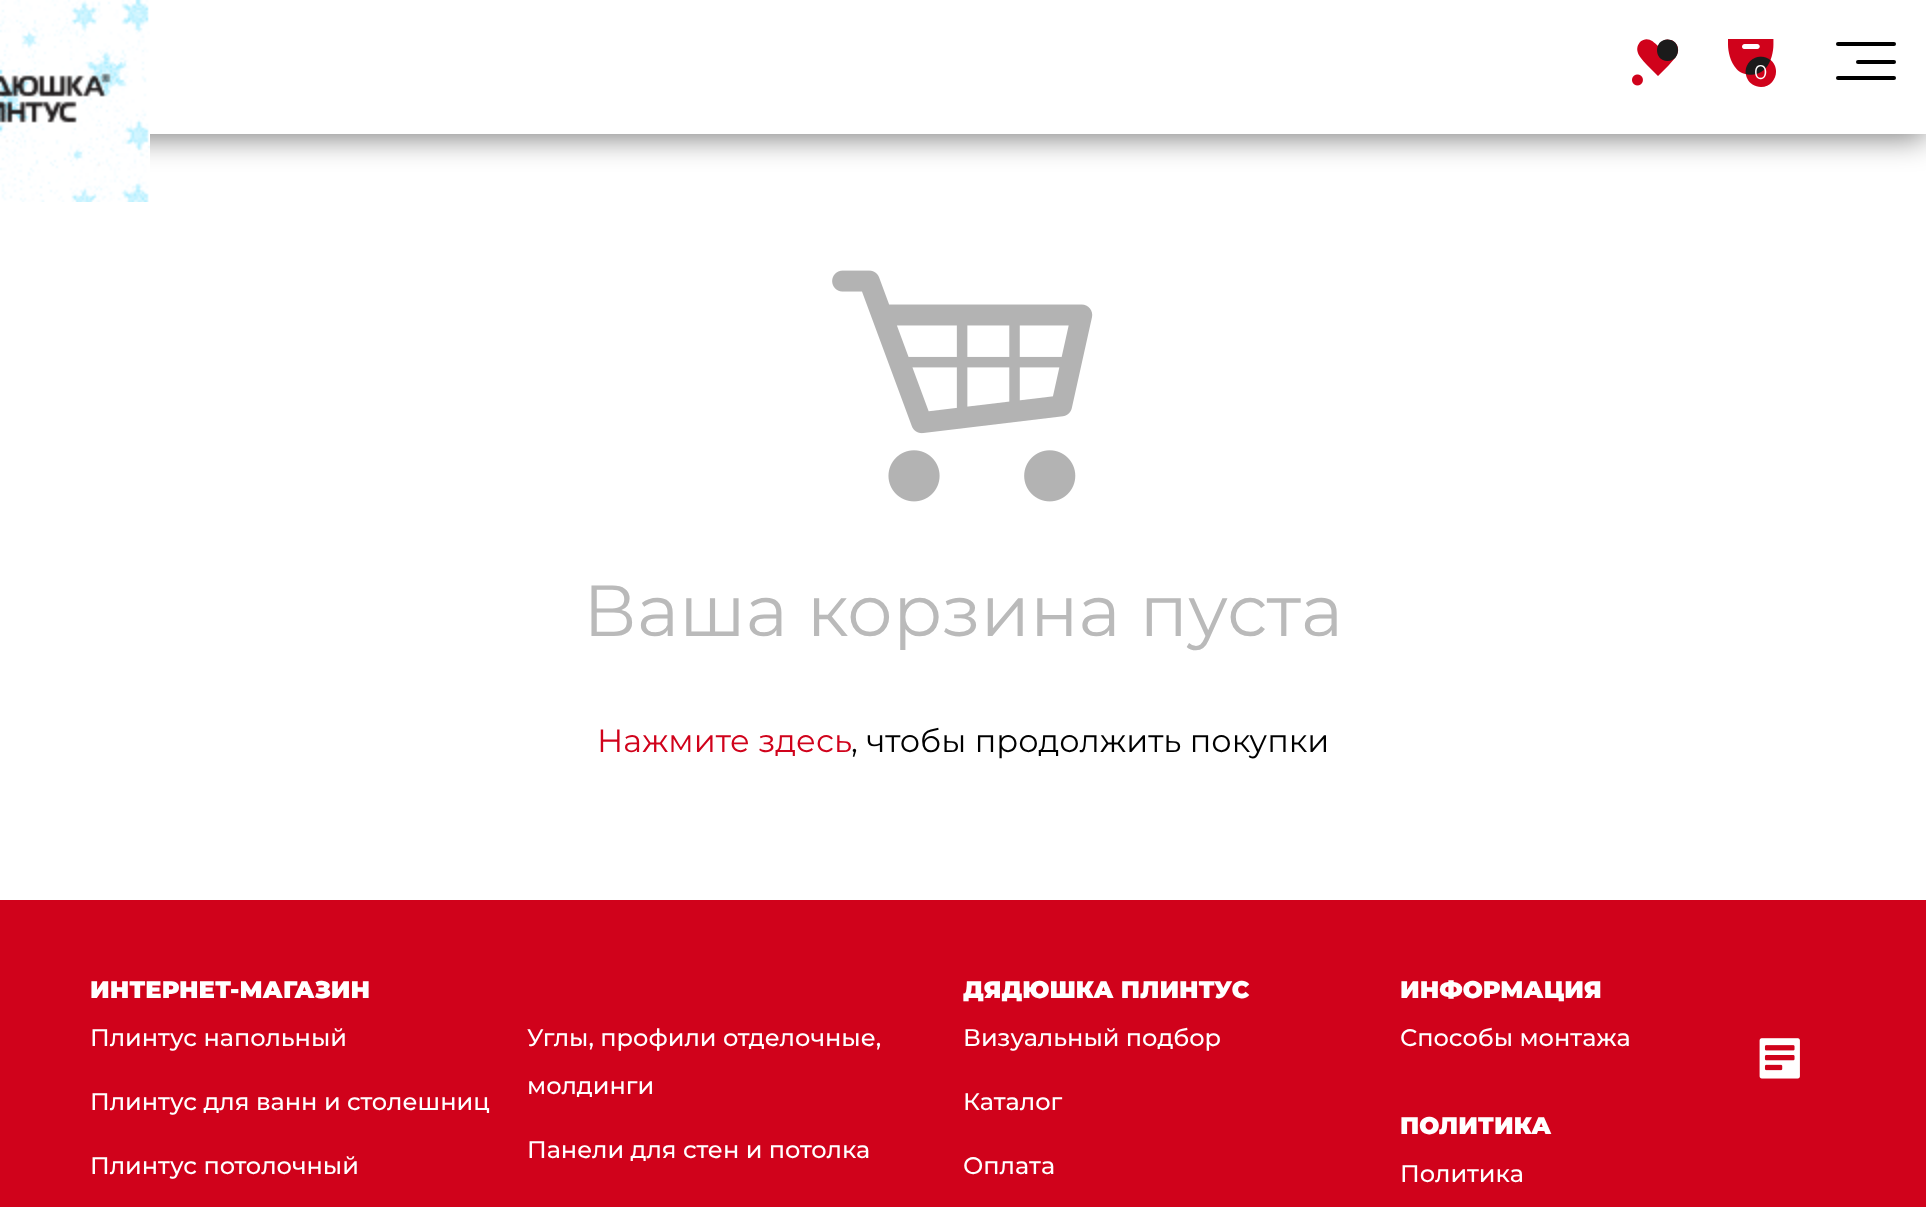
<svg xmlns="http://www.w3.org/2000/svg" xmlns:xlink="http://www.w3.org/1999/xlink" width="1926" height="1207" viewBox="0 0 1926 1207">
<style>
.cls-1{font:20px Montserrat;fill:#ffffff}
.cls-2{font:72px Montserrat;fill:#bababa}
.cls-3{font:32px Montserrat;fill:#d0021b}
.cls-4{font:32px Montserrat;fill:#000000}
.cls-5{font:900 24px Montserrat;fill:#ffffff}
.cls-6{font:500 24px Montserrat;fill:#ffffff}
</style>
<rect width="100%" height="100%" fill="#ffffff"/>
<rect fill="#000000" fill-opacity="0.5" filter="blur(15px)" x="0" y="10" width="1926" height="128"/>
<rect fill="#ffffff" x="150" y="0" width="1776" height="134"/>
<image xlink:href="image0.png" x="0" y="0" width="150" height="202"/>
<image xlink:href="image1.png" x="1632" y="74" width="11" height="12"/>
<path fill="#d0021b" d="M1640 42C1633 51 1641 58 1646 64L1658 76L1669 65C1674 59 1681 53 1677 45C1675 42 1673 40 1670 40C1665 38 1661 42 1658 46C1653 41 1647 36 1640 42Z"/>
<path fill="#1b1b1b" d="M1667.5 61C1681.5 61 1681.5 39.5 1667.5 39.5C1653.5 39.5 1653.5 61 1667.5 61Z"/>
<path fill="#d0021b" d="M1761 87C1775.5 87 1781.5 68 1770 59.5C1767.5 57.5 1764 56.5 1761 56.5C1746 56.5 1740 76 1752.5 84.5C1755 86 1758 87 1761 87Z"/>
<image xlink:href="image2.png" x="1728" y="39" width="46" height="36"/>
<image xlink:href="image3.png" x="1745" y="56" width="26" height="19"/>
<rect fill="#000000" x="1836" y="42" width="60" height="4" rx="2"/>
<rect fill="#000000" x="1856" y="60" width="40" height="4" rx="2"/>
<rect fill="#000000" x="1836" y="76" width="60" height="4" rx="2"/>
<image xlink:href="image4.png" x="832" y="270" width="261" height="232"/>
<rect fill="#d0021b" x="0" y="900" width="1926" height="307"/>
<image xlink:href="image5.png" x="1759" y="1038" width="41" height="41"/>
<text class="cls-1" x="1754" y="79">0</text>
<text class="cls-2" x="583" y="636">Ваша корзина пуста</text>
<text class="cls-3" x="597" y="752">Нажмите здесь</text>
<text class="cls-4" x="851" y="752">, чтобы продолжить покупки</text>
<text class="cls-5" x="90" y="998">ИНТЕРНЕТ-МАГАЗИН</text>
<text class="cls-6" x="90" y="1046">Плинтус напольный</text>
<text class="cls-6" x="90" y="1110">Плинтус для ванн и столешниц</text>
<text class="cls-6" x="90" y="1174">Плинтус потолочный</text>
<text class="cls-6" x="527" y="1046">Углы, профили отделочные,</text>
<text class="cls-6" x="527" y="1094">молдинги</text>
<text class="cls-6" x="527" y="1158">Панели для стен и потолка</text>
<text class="cls-5" x="963" y="998">ДЯДЮШКА ПЛИНТУС</text>
<text class="cls-6" x="963" y="1046">Визуальный подбор</text>
<text class="cls-6" x="963" y="1110">Каталог</text>
<text class="cls-6" x="963" y="1174">Оплата</text>
<text class="cls-5" x="1400" y="998">ИНФОРМАЦИЯ</text>
<text class="cls-6" x="1400" y="1046">Способы монтажа</text>
<text class="cls-5" x="1400" y="1134">ПОЛИТИКА</text>
<text class="cls-6" x="1400" y="1182">Политика</text>
</svg>
